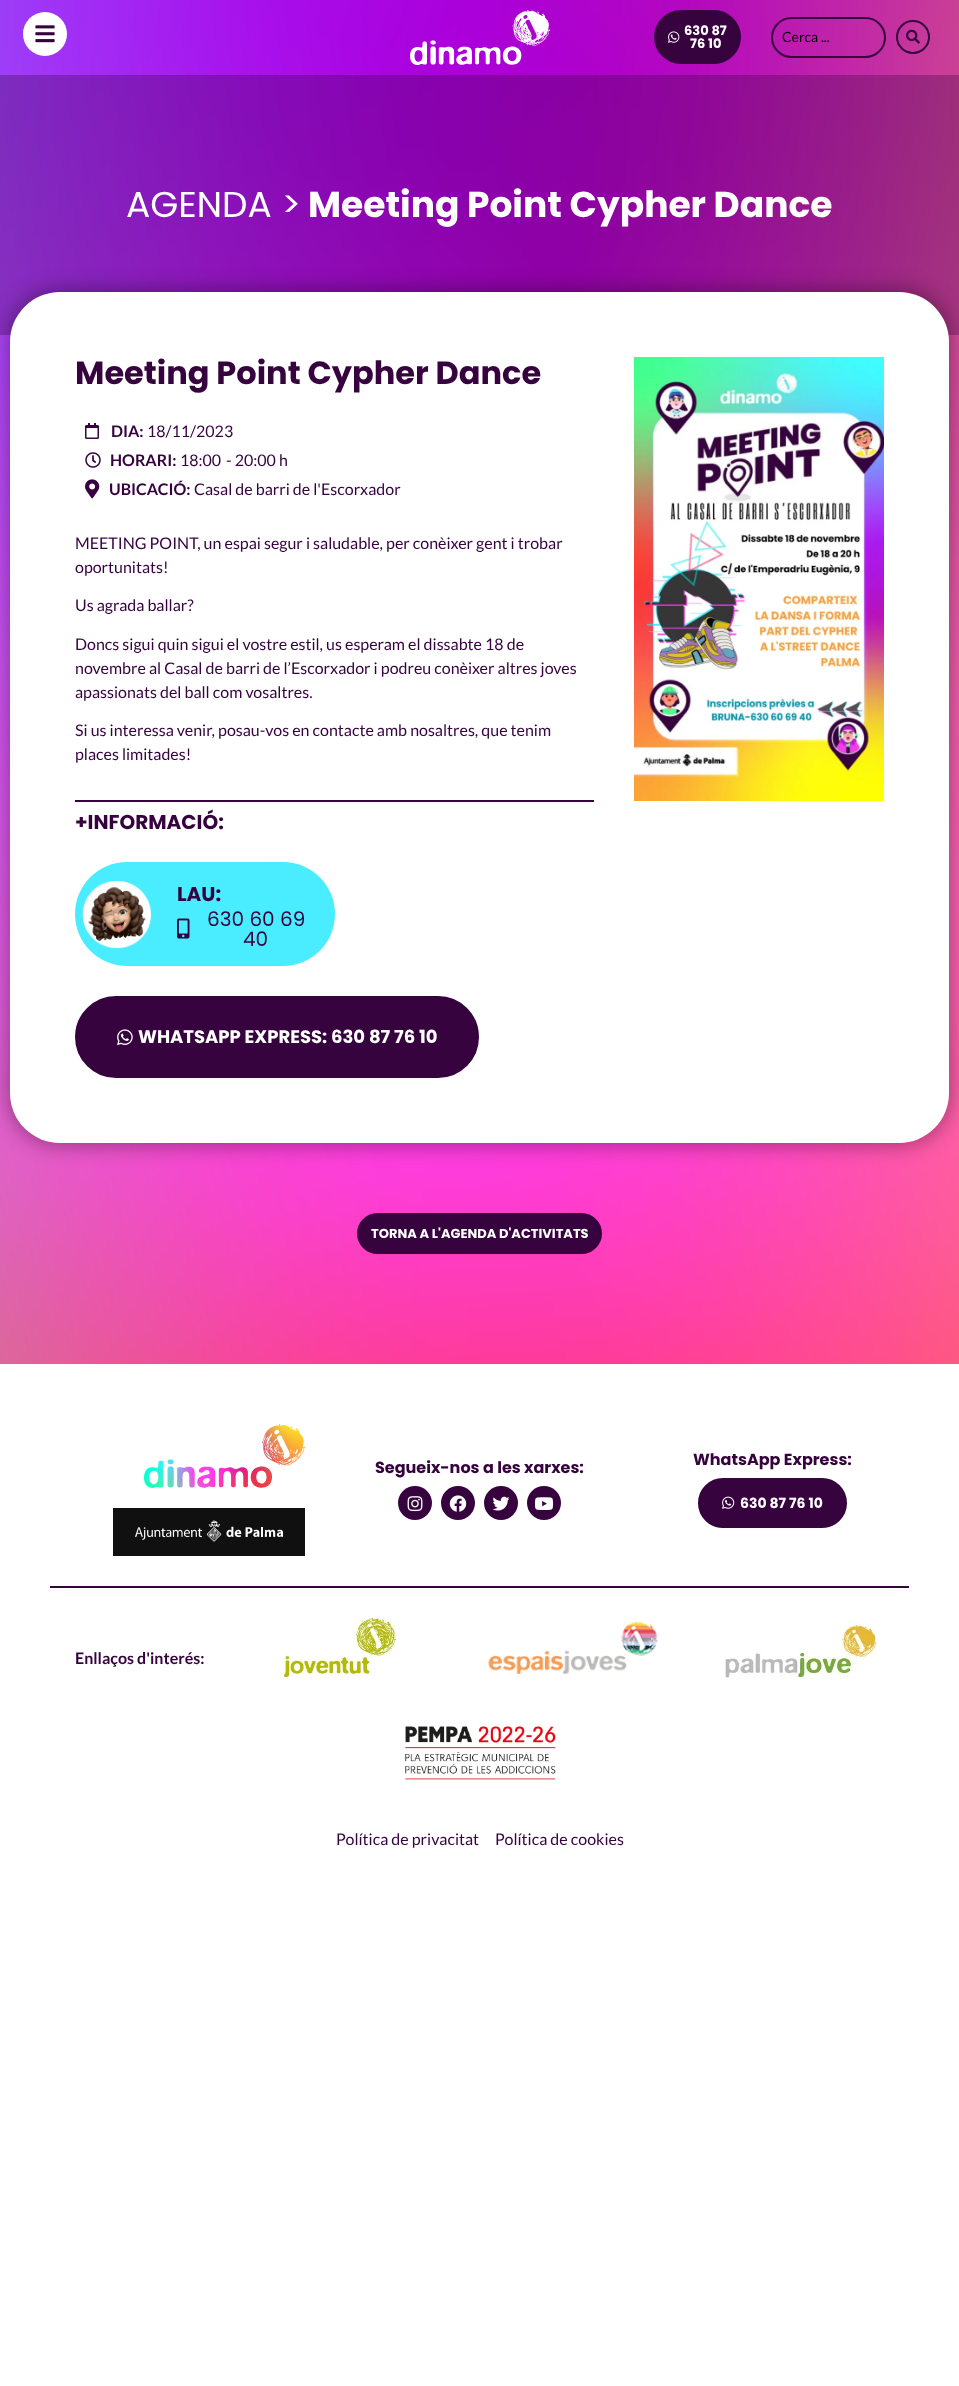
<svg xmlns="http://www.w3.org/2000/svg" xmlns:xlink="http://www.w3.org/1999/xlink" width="959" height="2386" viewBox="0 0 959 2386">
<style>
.cls-1{font:bold 13px Poppins;fill:#ffffff}
.cls-2{font:14px Lato;fill:#000000}
.cls-3{font:36px Poppins;fill:#ffffff}
.cls-4{font:bold 36px Poppins;fill:#ffffff}
.cls-5{font:bold 32px Poppins;fill:#36033f}
.cls-6{font:bold 16px Lato;fill:#36033f}
.cls-7{font:16px Lato;fill:#36033f}
.cls-8{font:bold 20px Poppins;fill:#36033f}
.cls-9{font:20px Poppins;fill:#36033f}
.cls-10{font:bold 18px Poppins;fill:#ffffff}
.cls-11{font:bold 16px Poppins;fill:#36033f}
.cls-12{font:bold 14px Poppins;fill:#ffffff}
</style>
<rect width="100%" height="100%" fill="#ffffff"/>
<image xlink:href="image0.png" x="0" y="0" width="959" height="1364"/>
<circle fill="#ffffff" cx="45" cy="34" r="22"/>
<image xlink:href="image1.png" x="35" y="25" width="20" height="18"/>
<image xlink:href="image2.png" x="410" y="10" width="140" height="55"/>
<rect fill="#36033f" stroke="#36033f" stroke-width="2" x="655" y="11" width="85" height="52" rx="26"/>
<image xlink:href="image3.png" x="668" y="31" width="12" height="12"/>
<rect fill="none" stroke="#36033f" stroke-width="2" x="772" y="18" width="113" height="39" rx="19.5"/>
<circle fill="none" stroke="#36033f" stroke-width="2" cx="913" cy="37" r="16"/>
<image xlink:href="image4.png" x="906" y="29" width="14" height="15"/>
<rect fill="#36033f" fill-opacity="0.3" x="0" y="75" width="959" height="260"/>
<rect fill="#000000" fill-opacity="0.33" filter="blur(10px)" x="7" y="289" width="945" height="857" rx="53"/>
<rect fill="#ffffff" x="10" y="292" width="939" height="851" rx="50"/>
<image xlink:href="image5.png" x="85" y="423" width="14" height="16"/>
<image xlink:href="image6.png" x="85" y="452" width="16" height="16"/>
<image xlink:href="image7.png" x="85" y="479" width="15" height="20"/>
<rect fill="#36033f" x="75" y="800" width="519" height="2"/>
<rect fill="#49edff" x="75" y="862" width="260" height="104" rx="52"/>
<image xlink:href="image8.png" x="82" y="880" width="70" height="69"/>
<image xlink:href="image9.png" x="177" y="918" width="13" height="21"/>
<rect fill="#36033f" stroke="#36033f" stroke-width="2" x="76" y="997" width="402" height="80" rx="40"/>
<image xlink:href="image10.png" x="117" y="1029" width="16" height="17"/>
<image xlink:href="image11.png" x="634" y="357" width="250" height="444"/>
<rect fill="#36033f" stroke="#36033f" stroke-width="2" x="358" y="1214" width="243" height="39" rx="19.5"/>
<image xlink:href="image12.png" x="144" y="1424" width="161" height="64"/>
<image xlink:href="image13.png" x="113" y="1508" width="192" height="48"/>
<circle fill="#36033f" cx="415" cy="1503" r="17"/>
<image xlink:href="image14.png" x="407" y="1496" width="16" height="16"/>
<circle fill="#36033f" cx="458" cy="1503" r="17"/>
<image xlink:href="image15.png" x="449" y="1495" width="18" height="17"/>
<circle fill="#36033f" cx="501" cy="1503" r="17"/>
<image xlink:href="image16.png" x="492" y="1496" width="18" height="15"/>
<circle fill="#36033f" cx="544" cy="1503" r="17"/>
<image xlink:href="image17.png" x="534" y="1497" width="20" height="13"/>
<rect fill="#36033f" stroke="#36033f" stroke-width="2" x="699" y="1479" width="147" height="48" rx="24"/>
<image xlink:href="image18.png" x="722" y="1496" width="13" height="13"/>
<rect fill="#36033f" x="50" y="1586" width="859" height="2"/>
<image xlink:href="image19.png" x="282" y="1618" width="117" height="59"/>
<image xlink:href="image20.png" x="488" y="1621" width="170" height="53"/>
<image xlink:href="image21.png" x="725" y="1622" width="152" height="57"/>
<image xlink:href="image22.png" x="405" y="1726" width="151" height="54"/>
<text class="cls-1" x="684" y="35">630 87</text>
<text class="cls-1" x="690" y="48">76 10</text>
<text class="cls-2" x="782" y="42">Cerca ...</text>
<text class="cls-3" x="126" y="217">AGENDA &gt;</text>
<text class="cls-4" x="308" y="217">Meeting Point Cypher Dance</text>
<text class="cls-5" x="75" y="384">Meeting Point Cypher Dance</text>
<text class="cls-6" x="111" y="437">DIA:</text>
<text class="cls-7" x="147" y="437">18/11/2023</text>
<text class="cls-6" x="110" y="466">HORARI:</text>
<text class="cls-7" x="180" y="466">18:00</text>
<text class="cls-7" x="226" y="466">- 20:00 h</text>
<text class="cls-6" x="109" y="495">UBICACIÓ:</text>
<text class="cls-7" x="194" y="495">Casal de barri de l'Escorxador</text>
<text class="cls-7"><tspan x="75" y="549">MEETING POINT, un espai segur i saludable, per conèixer gent i trobar</tspan><tspan x="75" y="573">oportunitats!</tspan></text>
<text class="cls-7" x="75" y="611">Us agrada ballar?</text>
<text class="cls-7"><tspan x="75" y="650">Doncs sigui quin sigui el vostre estil, us esperam el dissabte 18 de</tspan><tspan x="75" y="674">novembre al Casal de barri de l’Escorxador i podreu conèixer altres joves</tspan><tspan x="75" y="698">apassionats del ball com vosaltres.</tspan></text>
<text class="cls-7"><tspan x="75" y="736">Si us interessa venir, posau-vos en contacte amb nosaltres, que tenim</tspan><tspan x="75" y="760">places limitades!</tspan></text>
<text class="cls-8" x="75" y="829">+INFORMACIÓ:</text>
<text class="cls-8" x="177" y="901">LAU:</text>
<text class="cls-9" x="207" y="926">630 60 69</text>
<text class="cls-9" x="243" y="946">40</text>
<text class="cls-10" x="138" y="1043">WHATSAPP EXPRESS: 630 87 76 10</text>
<text class="cls-1" x="371" y="1238">TORNA A L'AGENDA D'ACTIVITATS</text>
<text class="cls-11" x="375" y="1473">Segueix-nos a les xarxes:</text>
<text class="cls-11" x="693" y="1465">WhatsApp Express:</text>
<text class="cls-12" x="740" y="1508">630 87 76 10</text>
<text class="cls-6" x="75" y="1664">Enllaços d'interés:</text>
<text class="cls-7" x="336" y="1845">Política de privacitat</text>
<text class="cls-7" x="495" y="1845">Política de cookies</text>
</svg>
